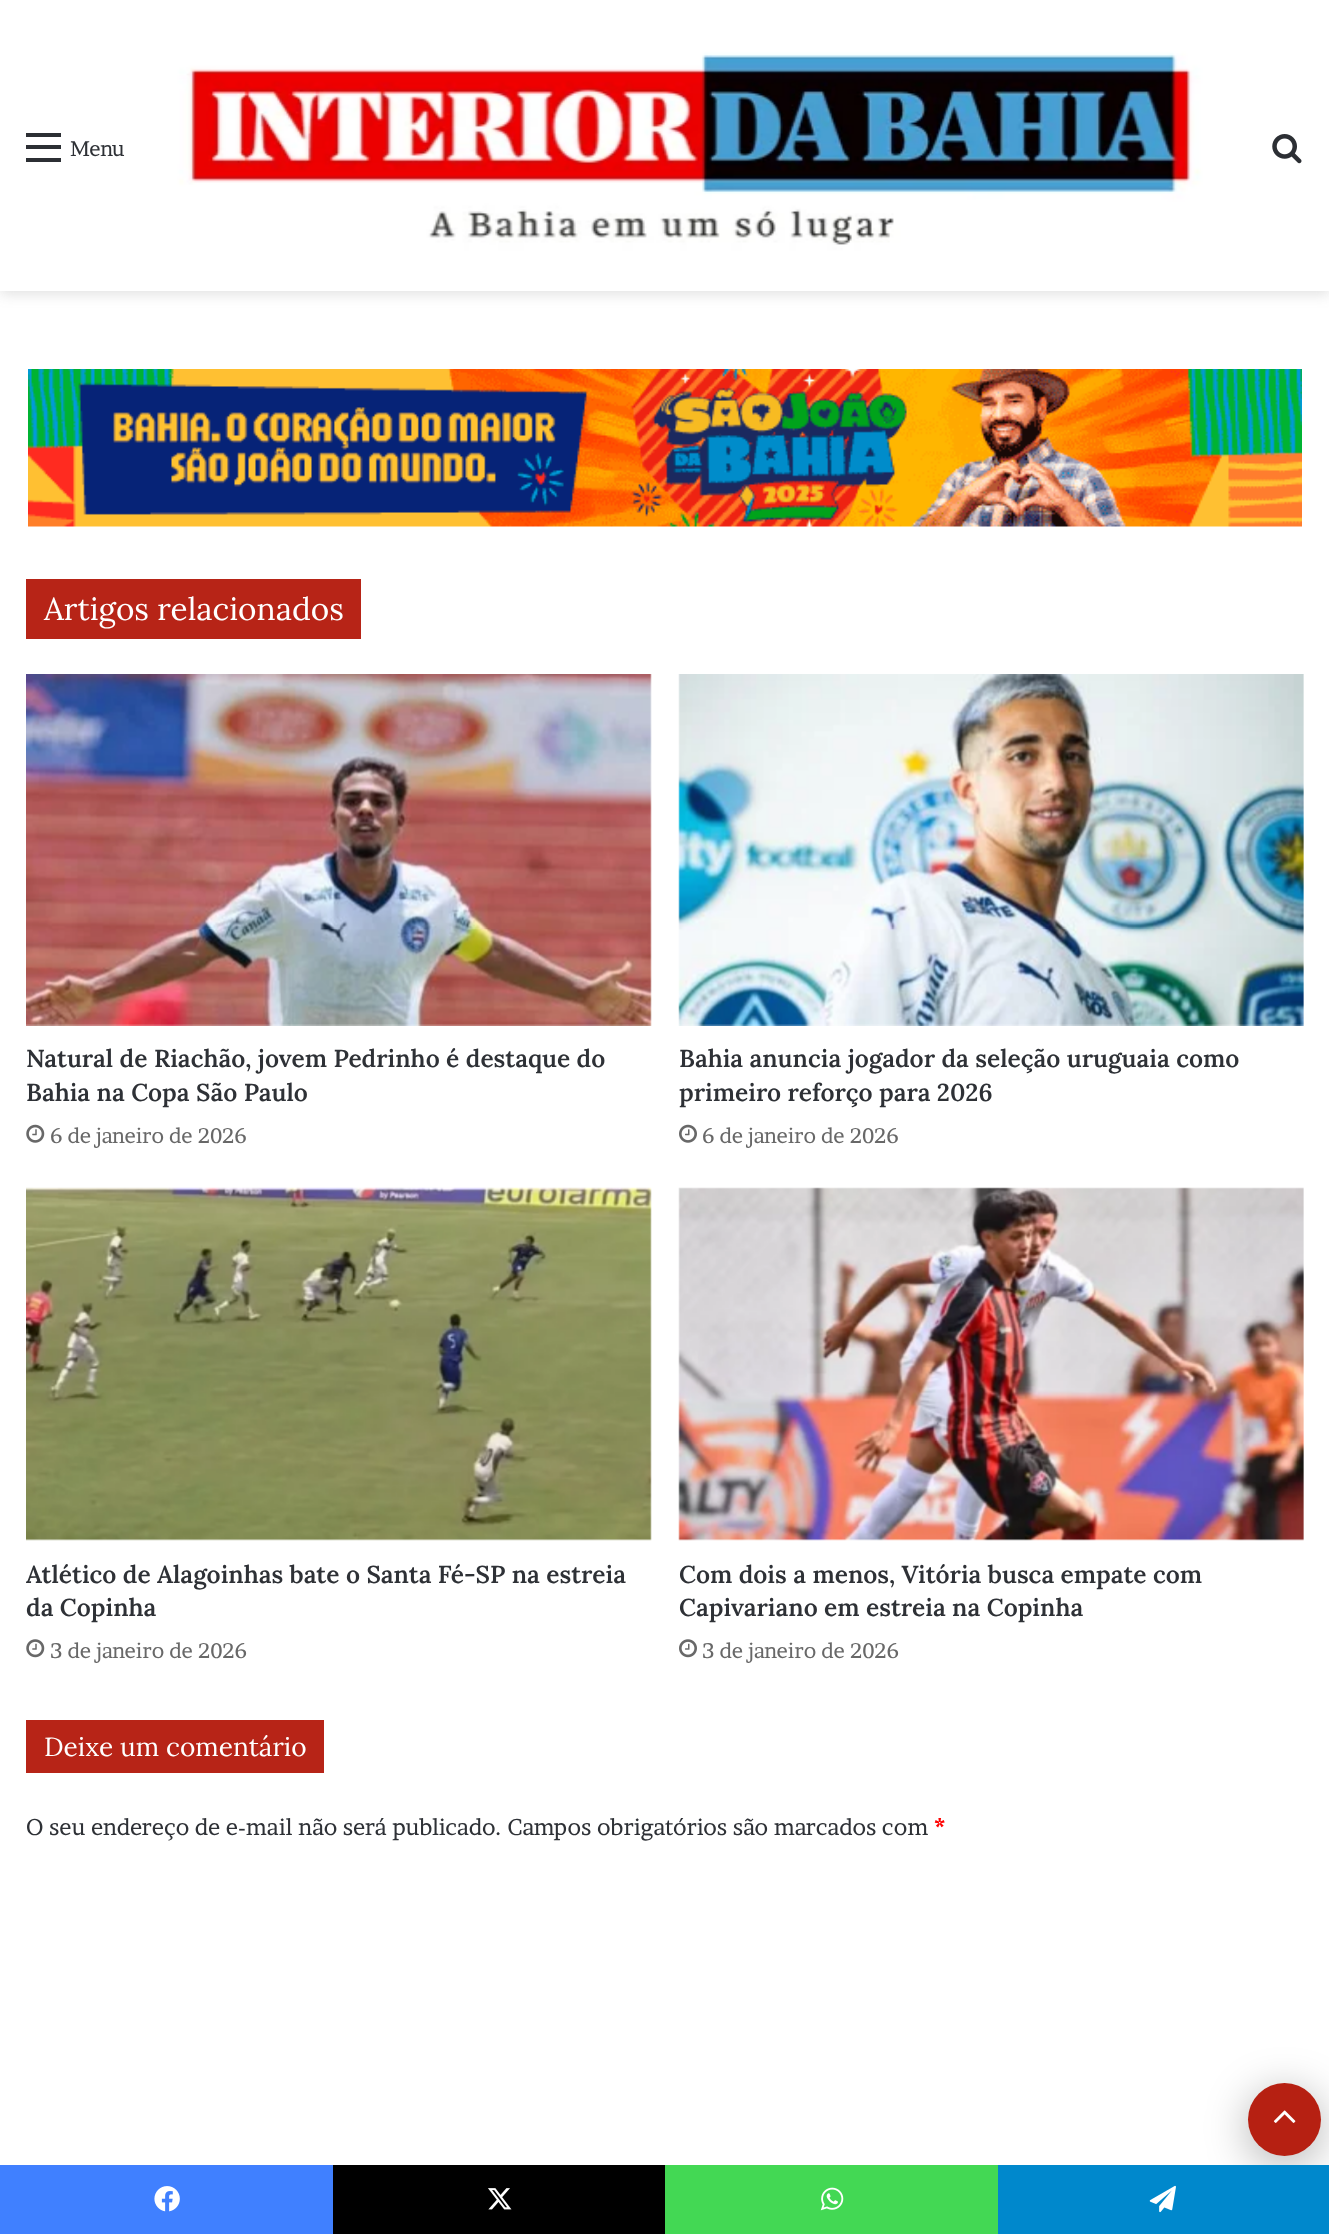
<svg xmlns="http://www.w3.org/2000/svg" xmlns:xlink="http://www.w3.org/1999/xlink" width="1329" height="2234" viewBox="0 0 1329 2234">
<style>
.cls-1{font:21px Brawler;fill:#2e3136}
.cls-2{font:31.5px Lora;fill:#ffffff}
.cls-3{font:600 24.5px Lora;fill:#2e3136}
.cls-4{font:21px Brawler;fill:#686868}
.cls-5{font:26.25px Lora;fill:#ffffff}
.cls-6{font:22.75px Brawler;fill:#2e3136}
.cls-7{font:bold 22.75px Brawler;fill:#ff0303}
</style>
<defs>
<clipPath id="clip1"><path d="M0 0H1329V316H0ZM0 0H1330V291H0Z" clip-rule="evenodd"/></clipPath>
</defs>
<rect width="100%" height="100%" fill="#ffffff"/>
<g clip-path="url(#clip1)">
<rect fill="#636363" fill-opacity="0.2" filter="blur(7px)" x="0" y="4" width="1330" height="290"/>
</g>
<rect fill="#ffffff" fill-opacity="0.95" x="0" y="290" width="1329" height="1"/>
<rect fill="#2c2f34" x="26" y="145" width="35" height="4"/>
<rect fill="#2c2f34" x="26" y="133" width="35" height="4"/>
<rect fill="#2c2f34" x="26" y="158" width="35" height="4"/>
<image xlink:href="image0.png" x="151" y="50" width="1092" height="207"/>
<image xlink:href="image1.png" x="1272" y="134" width="30" height="30"/>
<image xlink:href="image2.png" x="28" y="369" width="1274" height="158"/>
<rect fill="#b72417" x="26" y="579" width="335" height="60"/>
<image xlink:href="image3.png" x="26" y="674" width="626" height="352"/>
<image xlink:href="image4.png" x="26" y="1124" width="19" height="19"/>
<image xlink:href="image5.png" x="678" y="674" width="626" height="352"/>
<image xlink:href="image6.png" x="679" y="1124" width="18" height="19"/>
<image xlink:href="image7.png" x="26" y="1187" width="626" height="354"/>
<image xlink:href="image8.png" x="26" y="1639" width="19" height="19"/>
<image xlink:href="image9.png" x="678" y="1187" width="626" height="354"/>
<image xlink:href="image10.png" x="679" y="1639" width="18" height="19"/>
<rect fill="#b72417" x="26" y="1720" width="298" height="53"/>
<rect fill="#000000" fill-opacity="0.3" filter="blur(22px)" x="1248" y="2091" width="73" height="74" rx="36.5"/>
<circle fill="#b62012" cx="1284.5" cy="2119.5" r="36.5"/>
<image xlink:href="image11.png" x="1273" y="2110" width="23" height="13"/>
<rect fill="#4080ff" x="0" y="2165" width="333" height="69"/>
<image xlink:href="image12.png" x="154" y="2186" width="26" height="26"/>
<rect fill="#000000" x="333" y="2165" width="332" height="69"/>
<image xlink:href="image13.png" x="488" y="2188" width="24" height="22"/>
<rect fill="#43d854" x="665" y="2165" width="333" height="69"/>
<image xlink:href="image14.png" x="820" y="2187" width="24" height="24"/>
<rect fill="#0088cc" x="998" y="2165" width="331" height="69"/>
<image xlink:href="image15.png" x="1149" y="2185" width="27" height="28"/>
<text class="cls-1" x="70" y="156">Menu</text>
<text class="cls-2" x="44" y="620">Artigos relacionados</text>
<text class="cls-3"><tspan x="26" y="1067">Natural de Riachão, jovem Pedrinho é destaque do</tspan><tspan x="26" y="1101">Bahia na Copa São Paulo</tspan></text>
<text class="cls-4" x="50" y="1143">6 de janeiro de 2026</text>
<text class="cls-3"><tspan x="679" y="1067">Bahia anuncia jogador da seleção uruguaia como</tspan><tspan x="679" y="1101">primeiro reforço para 2026</tspan></text>
<text class="cls-4" x="702" y="1143">6 de janeiro de 2026</text>
<text class="cls-3"><tspan x="26" y="1583">Atlético de Alagoinhas bate o Santa Fé-SP na estreia</tspan><tspan x="26" y="1616">da Copinha</tspan></text>
<text class="cls-4" x="50" y="1658">3 de janeiro de 2026</text>
<text class="cls-3"><tspan x="679" y="1583">Com dois a menos, Vitória busca empate com</tspan><tspan x="679" y="1616">Capivariano em estreia na Copinha</tspan></text>
<text class="cls-4" x="702" y="1658">3 de janeiro de 2026</text>
<text class="cls-5" x="44" y="1756">Deixe um comentário</text>
<text class="cls-6" x="26" y="1835">O seu endereço de e-mail não será publicado. Campos obrigatórios são marcados com</text>
<text class="cls-7" x="934" y="1835">*</text>
</svg>
